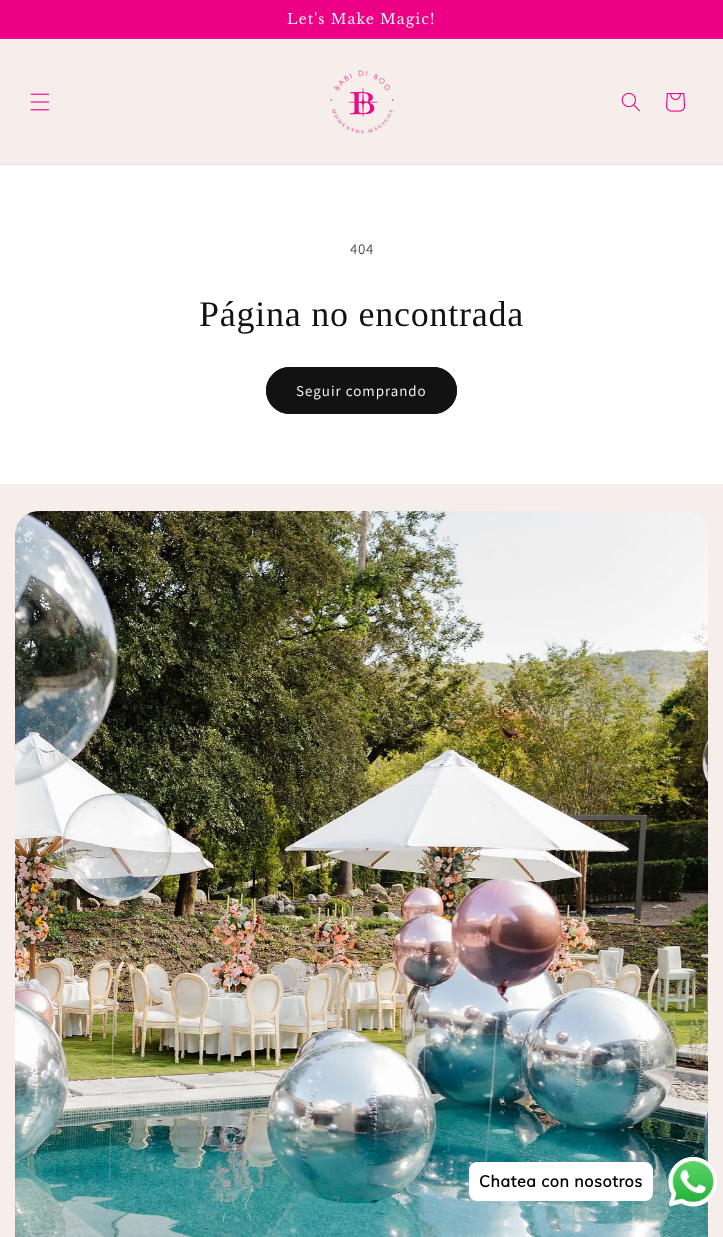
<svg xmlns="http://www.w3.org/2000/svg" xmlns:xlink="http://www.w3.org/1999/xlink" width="723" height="1237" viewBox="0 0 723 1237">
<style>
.cls-1{font:14.4px Libre Baskerville;letter-spacing:1px;fill:#f5eeea}
.cls-2{font:15px Assistant;letter-spacing:0.6px;fill:#4d4d4d}
.cls-3{font:36px Liberation Serif;letter-spacing:0.75px;fill:#121212}
.cls-4{font:15px Assistant;letter-spacing:1px;fill:#ffffff}
.cls-5{font:bold 16px Muli;letter-spacing:0.6px;fill:#000000}
</style>
<rect width="100%" height="100%" fill="#ffffff"/>
<rect fill="#ec0086" x="0" y="0" width="723" height="38"/>
<rect fill="#ed138e" x="0" y="38" width="723" height="1"/>
<rect fill="#f5eeea" x="0" y="39" width="723" height="125"/>
<rect fill="#f4dbe2" x="0" y="164" width="723" height="1"/>
<image xlink:href="image0.png" x="30" y="93" width="20" height="18"/>
<image xlink:href="image1.png" x="330" y="70" width="64" height="64"/>
<image xlink:href="image2.png" x="621" y="92" width="19" height="20"/>
<image xlink:href="image3.png" x="666" y="93" width="20" height="19"/>
<rect fill="#121212" x="266" y="367" width="191" height="47" rx="23.5"/>
<rect fill="none" stroke="#121212" x="266.5" y="367.5" width="190" height="46" rx="23"/>
<rect fill="#f5eeea" x="0" y="484" width="723" height="753"/>
<image xlink:href="image4.png" x="15" y="511" width="693" height="726"/>
<image xlink:href="image5.png" x="668" y="1157" width="50" height="50"/>
<rect fill="#ffffff" x="469" y="1162" width="184" height="39" rx="8"/>
<text class="cls-1" x="287" y="24">Let's Make Magic!</text>
<text class="cls-2" x="350" y="254">404</text>
<text class="cls-3" x="199" y="326">Página no encontrada</text>
<text class="cls-4" x="296" y="396">Seguir comprando</text>
<text class="cls-5" x="479" y="1187">Chatea con nosotros</text>
</svg>
